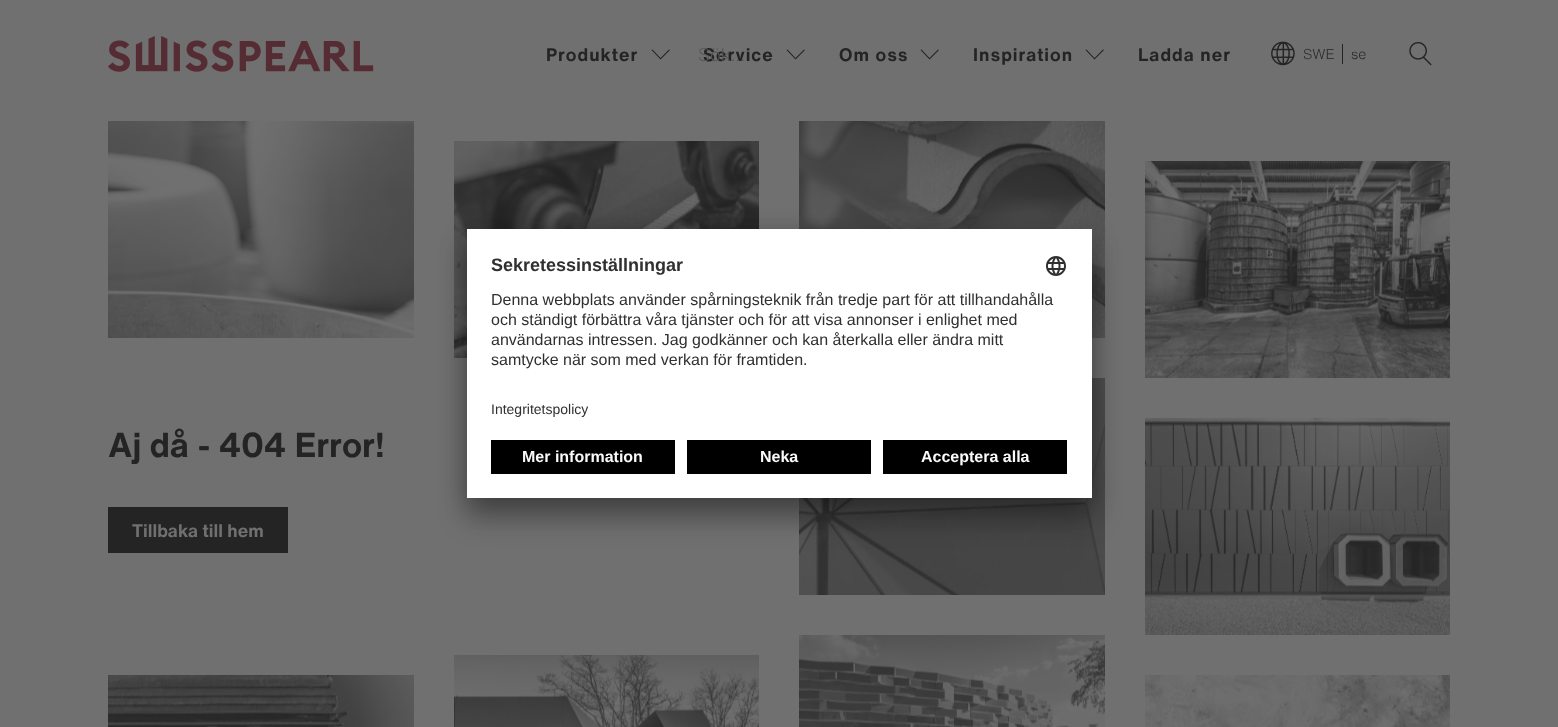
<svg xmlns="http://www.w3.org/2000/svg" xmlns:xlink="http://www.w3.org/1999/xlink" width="1558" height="727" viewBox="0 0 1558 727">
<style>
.cls-1{font:bold 18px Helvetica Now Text;letter-spacing:1px;fill:#242424}
.cls-2{font:300 18px Helvetica Now Text;fill:#565656}
.cls-3{font:300 14px Helvetica Now Text;fill:#242424}
.cls-4{font:bold 18px Liberation Sans;fill:#303030}
.cls-5{font:16px Liberation Sans;fill:#303030}
.cls-6{font:14px Liberation Sans;fill:#303030}
.cls-7{font:bold 16px Liberation Sans;fill:#fafafa}
.cls-8{font:bold 34px Helvetica Now Text;fill:#242424}
.cls-9{font:bold 18px Helvetica Now Text;fill:#707070}
</style>
<rect width="100%" height="100%" fill="#707070"/>
<image xlink:href="image0.png" x="108" y="36" width="266" height="36"/>
<path fill="#242424" d="M669 49.5L670 50L660.5 59.5L651.5 50L652.5 49.5L660.5 58Z"/>
<path fill="#242424" d="M804 49.5L805 50L795.5 59.5L786.5 50L787.5 49.5L795.5 58Z"/>
<path fill="#242424" d="M938 49.5L939 50L929.5 59.5L920.5 50L921.5 49.5L929.5 58Z"/>
<path fill="#242424" d="M1103 49.5L1104 50L1094.5 59.5L1085.5 50L1086.5 49.5L1094.5 58Z"/>
<image xlink:href="image1.png" x="1409" y="42" width="23" height="24"/>
<image xlink:href="image2.png" x="1271" y="41" width="24" height="25"/>
<rect fill="#242424" x="1342" y="44" width="1" height="20"/>
<image xlink:href="image5.png" x="454" y="141" width="305" height="217"/>
<image xlink:href="image6.png" x="799" y="121" width="306" height="217"/>
<image xlink:href="image8.png" x="799" y="378" width="306" height="217"/>
<rect fill="#000000" fill-opacity="0.3" filter="blur(14px)" x="467" y="249" width="625" height="269"/>
<rect fill="#000000" fill-opacity="0.22" filter="blur(13px)" x="467" y="234" width="625" height="269"/>
<rect fill="#ffffff" x="467" y="229" width="625" height="269"/>
<image xlink:href="image3.png" x="1046" y="256" width="20" height="20"/>
<rect fill="#000000" x="491" y="440" width="184" height="34"/>
<rect fill="#000000" x="687" y="440" width="184" height="34"/>
<rect fill="#000000" x="883" y="440" width="184" height="34"/>
<image xlink:href="image4.png" x="108" y="121" width="306" height="217"/>
<image xlink:href="image7.png" x="1145" y="161" width="305" height="217"/>
<rect fill="#242424" x="108" y="507" width="180" height="46"/>
<image xlink:href="image9.png" x="1145" y="418" width="305" height="217"/>
<image xlink:href="image10.png" x="108" y="675" width="306" height="52"/>
<image xlink:href="image11.png" x="454" y="655" width="305" height="72"/>
<image xlink:href="image12.png" x="799" y="635" width="306" height="92"/>
<image xlink:href="image13.png" x="1145" y="675" width="305" height="52"/>
<text class="cls-1" x="546" y="61">Produkter</text>
<text class="cls-1" x="703" y="61">Service</text>
<text class="cls-1" x="839" y="61">Om oss</text>
<text class="cls-1" x="973" y="61">Inspiration</text>
<text class="cls-1" x="1138" y="61">Ladda ner</text>
<text class="cls-2" x="698" y="61">Sök…</text>
<text class="cls-3" x="1303" y="59">SWE</text>
<text class="cls-3" x="1351" y="59">se</text>
<text class="cls-4" x="491" y="271">Sekretessinställningar</text>
<text class="cls-5"><tspan x="491" y="305">Denna webbplats använder spårningsteknik från tredje part för att tillhandahålla</tspan><tspan x="491" y="325">och ständigt förbättra våra tjänster och för att visa annonser i enlighet med</tspan><tspan x="491" y="345">användarnas intressen. Jag godkänner och kan återkalla eller ändra mitt</tspan><tspan x="491" y="365">samtycke när som med verkan för framtiden.</tspan></text>
<text class="cls-6" x="491" y="414">Integritetspolicy</text>
<text class="cls-7" x="522" y="462">Mer information</text>
<text class="cls-7" x="760" y="462">Neka</text>
<text class="cls-7" x="921" y="462">Acceptera alla</text>
<text class="cls-8" x="108" y="457">Aj då - 404 Error!</text>
<text class="cls-9" x="132" y="537">Tillbaka till hem</text>
</svg>
